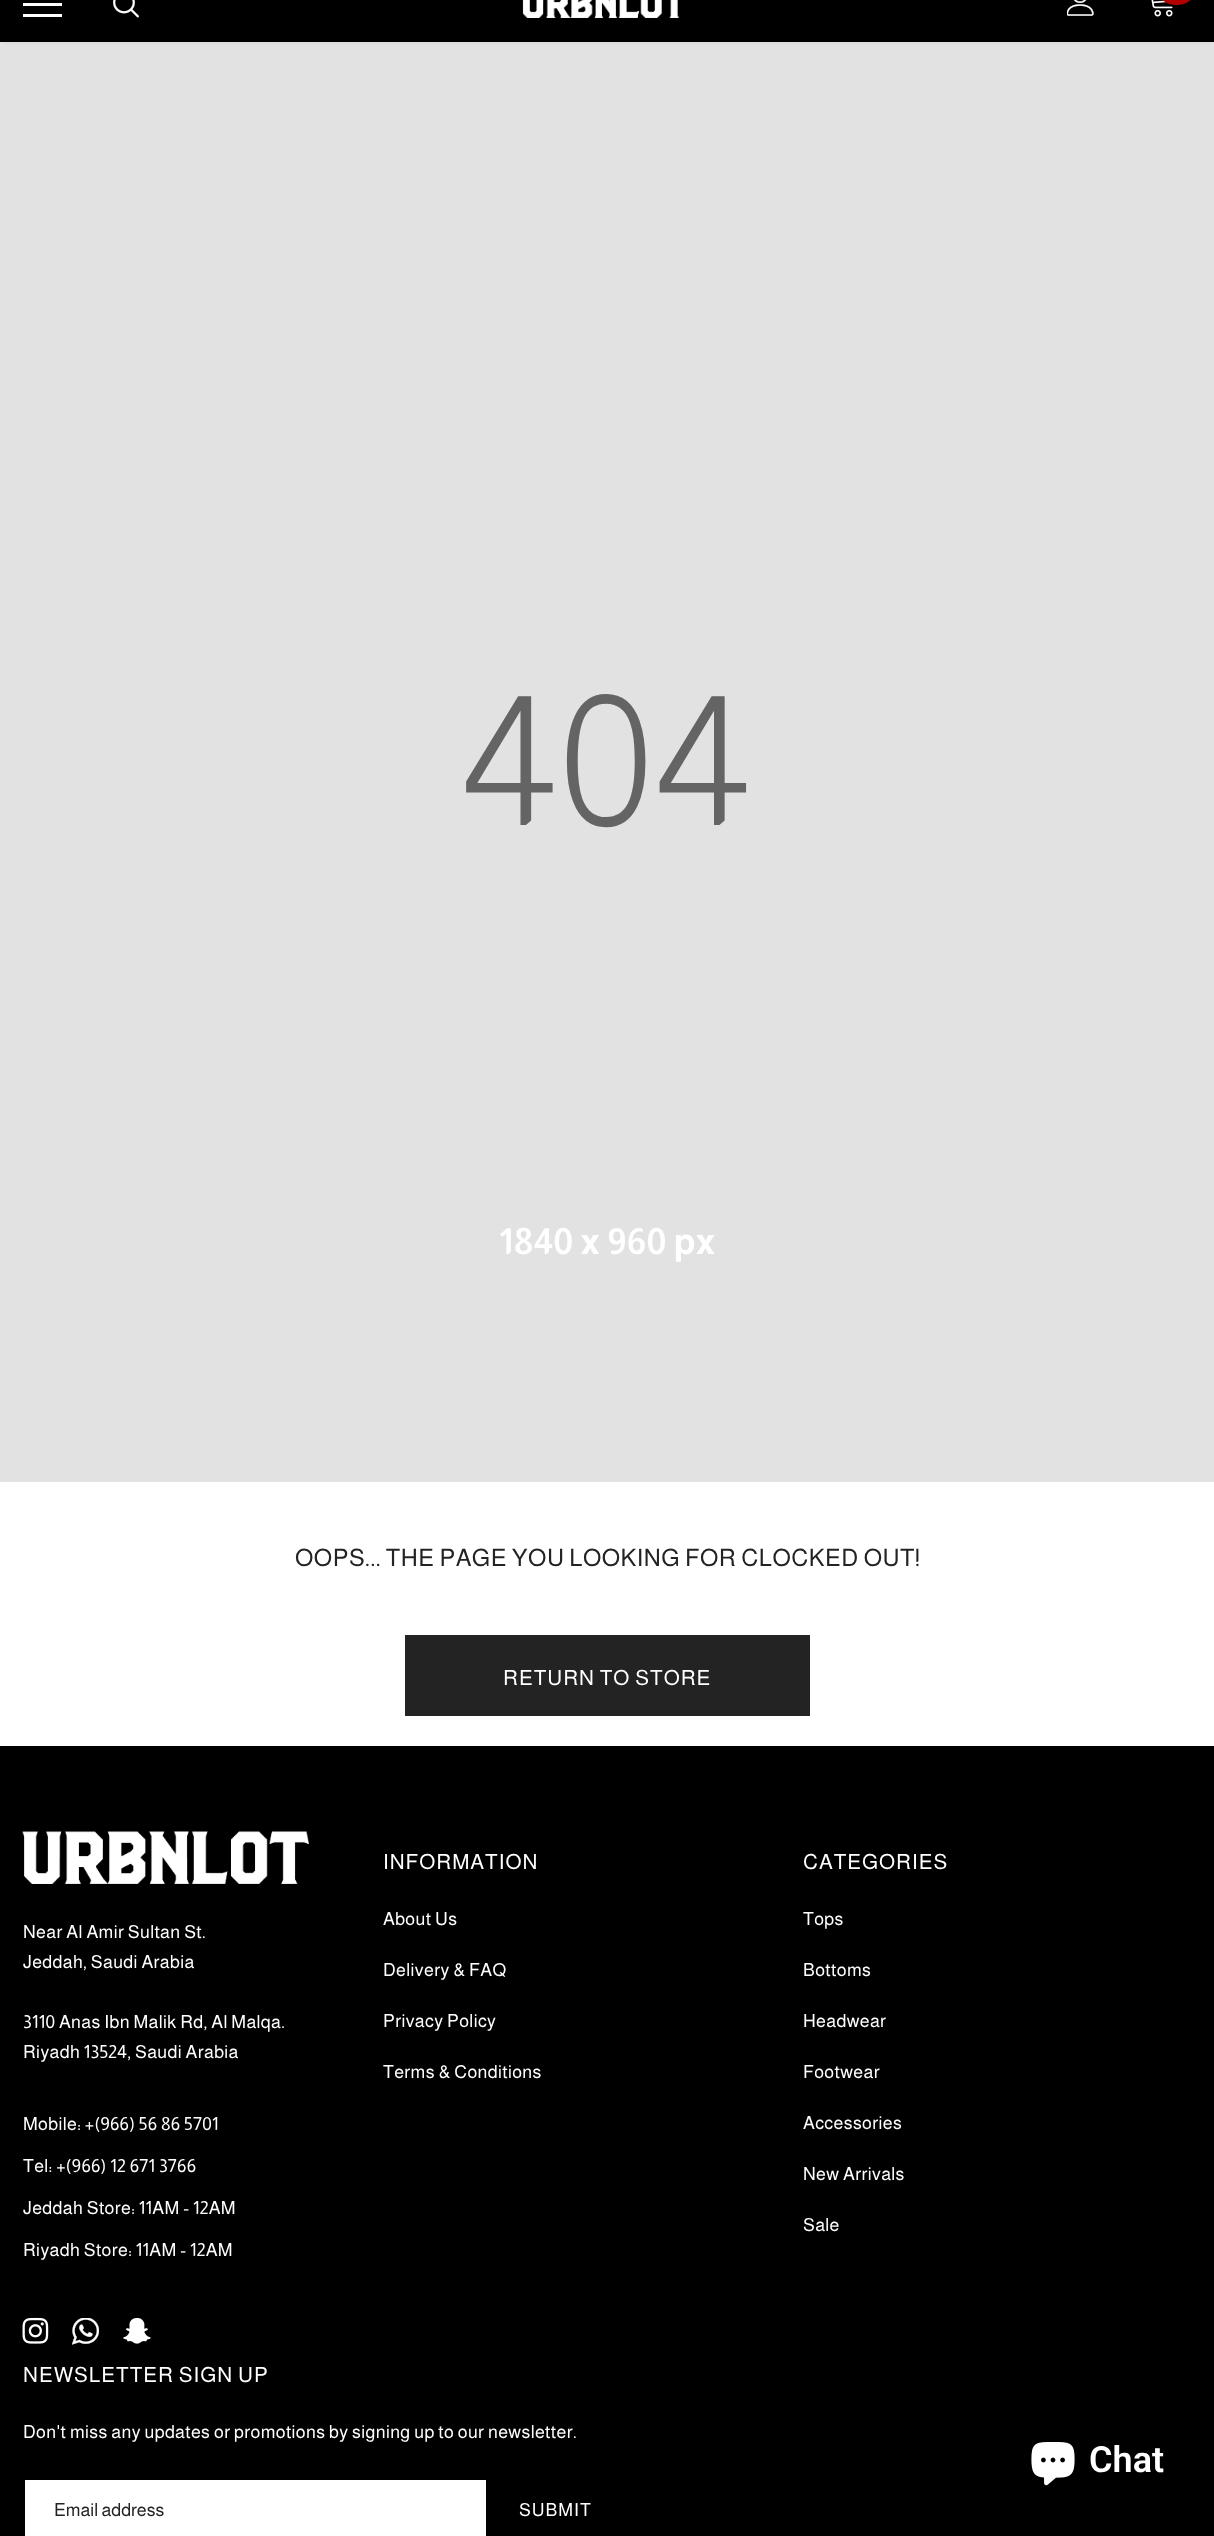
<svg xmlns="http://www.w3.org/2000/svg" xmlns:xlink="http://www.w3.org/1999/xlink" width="1214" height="2536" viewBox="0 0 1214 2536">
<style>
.cls-1{font:300 180px Almarai;letter-spacing:3.5px;fill:#646464}
.cls-2{font:bold 36px Almarai;letter-spacing:0.35px;fill:#ffffff}
.cls-3{font:24px Almarai;letter-spacing:0.5px;fill:#232323}
.cls-4{font:21px Almarai;letter-spacing:1px;fill:#ffffff}
.cls-5{font:18px Almarai;letter-spacing:0.35px;fill:#ffffff}
.cls-6{font:18px Almarai;fill:#232323}
.cls-7{font:18px Almarai;letter-spacing:1px;fill:#ffffff}
.cls-8{font:600 36px Roboto;fill:#ffffff}
</style>
<rect width="100%" height="100%" fill="#ffffff"/>
<rect fill="#e2e2e2" x="0" y="42" width="1214" height="1440"/>
<rect fill="#5e5e5e" fill-opacity="0.12" filter="blur(2px)" x="5" y="-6" width="1206" height="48"/>
<rect fill="#000000" x="0" y="0" width="1214" height="42"/>
<rect fill="#ffffff" x="23" y="3" width="39" height="3"/>
<rect fill="#ffffff" x="23" y="14" width="39" height="3"/>
<image xlink:href="image0.png" x="113" y="0" width="26" height="18"/>
<image xlink:href="image1.png" x="522" y="0" width="158" height="18"/>
<image xlink:href="image2.png" x="1067" y="0" width="27" height="16"/>
<image xlink:href="image3.png" x="1151" y="0" width="22" height="17"/>
<rect fill="#b20000" x="1160" y="-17" width="33" height="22" rx="16.5"/>
<rect fill="#232323" x="405" y="1635" width="405" height="81"/>
<rect fill="#000000" x="0" y="1746" width="1214" height="790"/>
<image xlink:href="image4.png" x="22" y="1831" width="287" height="53"/>
<image xlink:href="image5.png" x="22" y="2317" width="27" height="27"/>
<image xlink:href="image6.png" x="72" y="2318" width="27" height="27"/>
<image xlink:href="image7.png" x="123" y="2317" width="28" height="27"/>
<rect fill="#ffffff" x="25" y="2480" width="461" height="56"/>
<image xlink:href="image8.png" x="1031" y="2442" width="44" height="44"/>
<text class="cls-1" x="462" y="825">404</text>
<text class="cls-2" x="499" y="1254">1840 x 960 px</text>
<text class="cls-3" x="295" y="1566">OOPS... THE PAGE YOU LOOKING FOR CLOCKED OUT!</text>
<text class="cls-4" x="503" y="1685">RETURN TO STORE</text>
<text class="cls-5"><tspan x="23" y="1938">Near Al Amir Sultan St.</tspan><tspan x="23" y="1968">Jeddah, Saudi Arabia</tspan></text>
<text class="cls-5"><tspan x="23" y="2028">3110 Anas Ibn Malik Rd, Al Malqa.</tspan><tspan x="23" y="2058">Riyadh 13524, Saudi Arabia</tspan></text>
<text class="cls-5" x="23" y="2130">Mobile: +(966) 56 86 5701</text>
<text class="cls-5" x="23" y="2172">Tel: +(966) 12 671 3766</text>
<text class="cls-5" x="23" y="2214">Jeddah Store: 11AM - 12AM</text>
<text class="cls-5" x="23" y="2256">Riyadh Store: 11AM - 12AM</text>
<text class="cls-4" x="383" y="1869">INFORMATION</text>
<text class="cls-5" x="383" y="1925">About Us</text>
<text class="cls-5" x="383" y="1976">Delivery &amp; FAQ</text>
<text class="cls-5" x="383" y="2027">Privacy Policy</text>
<text class="cls-5" x="383" y="2078">Terms &amp; Conditions</text>
<text class="cls-4" x="803" y="1869">CATEGORIES</text>
<text class="cls-5" x="803" y="1925">Tops</text>
<text class="cls-5" x="803" y="1976">Bottoms</text>
<text class="cls-5" x="803" y="2027">Headwear</text>
<text class="cls-5" x="803" y="2078">Footwear</text>
<text class="cls-5" x="803" y="2129">Accessories</text>
<text class="cls-5" x="803" y="2180">New Arrivals</text>
<text class="cls-5" x="803" y="2231">Sale</text>
<text class="cls-4" x="23" y="2382">NEWSLETTER SIGN UP</text>
<text class="cls-5" x="23" y="2438">Don't miss any updates or promotions by signing up to our newsletter.</text>
<text class="cls-6" x="54" y="2516">Email address</text>
<text class="cls-7" x="519" y="2516">SUBMIT</text>
<text class="cls-8" x="1089" y="2472">Chat</text>
</svg>
